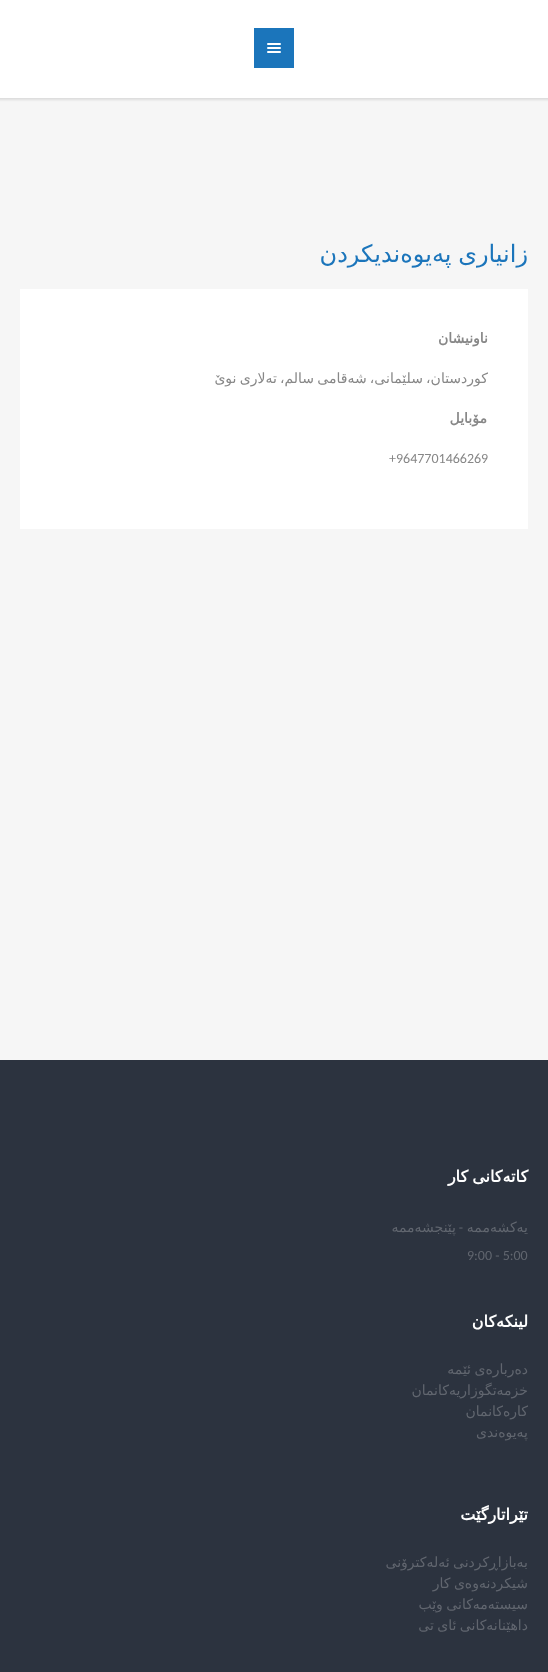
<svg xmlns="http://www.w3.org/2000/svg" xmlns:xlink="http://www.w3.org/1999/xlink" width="548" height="1672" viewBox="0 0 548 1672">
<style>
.cls-1{font:24px DejaVu Sans;direction:rtl;fill:#1b75bb}
.cls-2{font:bold 14px DejaVu Sans;direction:rtl;fill:#878787}
.cls-3{font:14px DejaVu Sans;direction:rtl;fill:#878787}
.cls-4{font:14px Carlito;fill:#878787}
.cls-5{font:bold 16px DejaVu Sans;direction:rtl;fill:#ffffff}
.cls-6{font:14px DejaVu Sans;direction:rtl;fill:#61666f}
.cls-7{font:14px Carlito;direction:rtl;fill:#61666f}
.cls-8{font:14px Carlito;fill:#61666f}
</style>
<rect width="100%" height="100%" fill="#f6f6f6"/>
<rect fill="#000000" fill-opacity="0.1" filter="blur(1px)" x="-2" y="-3" width="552" height="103"/>
<rect fill="#ffffff" x="0" y="0" width="548" height="98"/>
<rect fill="#1b75bb" x="254" y="28" width="40" height="40"/>
<image xlink:href="image0.png" x="267" y="43" width="14" height="10"/>
<rect fill="#ffffff" x="20" y="289" width="508" height="240"/>
<rect fill="#2c333f" x="0" y="1060" width="548" height="612"/>
<text class="cls-1" x="528" y="262" word-spacing="-1">زانیاری پەیوەندیکردن</text>
<text class="cls-2" x="488" y="343">ناونیشان</text>
<text class="cls-3" x="488" y="383" word-spacing="-1.25">کوردستان، سلێمانی، شەقامی سالم، تەلاری نوێ</text>
<text class="cls-2" x="487" y="423">مۆبایل</text>
<text class="cls-4" x="389" y="463">+9647701466269</text>
<text class="cls-5" x="528" y="1182" word-spacing="-1">کاتەکانی کار</text>
<text class="cls-6" x="528" y="1232">یەکشەممە</text>
<text class="cls-7" x="463" y="1232">-</text>
<text class="cls-6" x="456" y="1232">پێنجشەممە</text>
<text class="cls-8" x="467" y="1260">9:00 - 5:00</text>
<text class="cls-5" x="528" y="1327">لینکەکان</text>
<text class="cls-6"><tspan x="528" y="1374" word-spacing="-1">دەربارەی ئێمە</tspan><tspan x="528" y="1395">خزمەتگوزاریەکانمان</tspan><tspan x="528" y="1416">کارەکانمان</tspan><tspan x="528" y="1437">پەیوەندی</tspan></text>
<text class="cls-5" x="528" y="1520">تێراتارگێت</text>
<text class="cls-6"><tspan x="528" y="1567" word-spacing="-1">بەبازاڕکردنی ئەلەکترۆنی</tspan><tspan x="528" y="1588" word-spacing="-1">شیکردنەوەی کار</tspan><tspan x="528" y="1609" word-spacing="-1">سیستەمەکانی وێب</tspan><tspan x="528" y="1630" word-spacing="-1">داهێنانەکانی ئای تی</tspan></text>
</svg>
